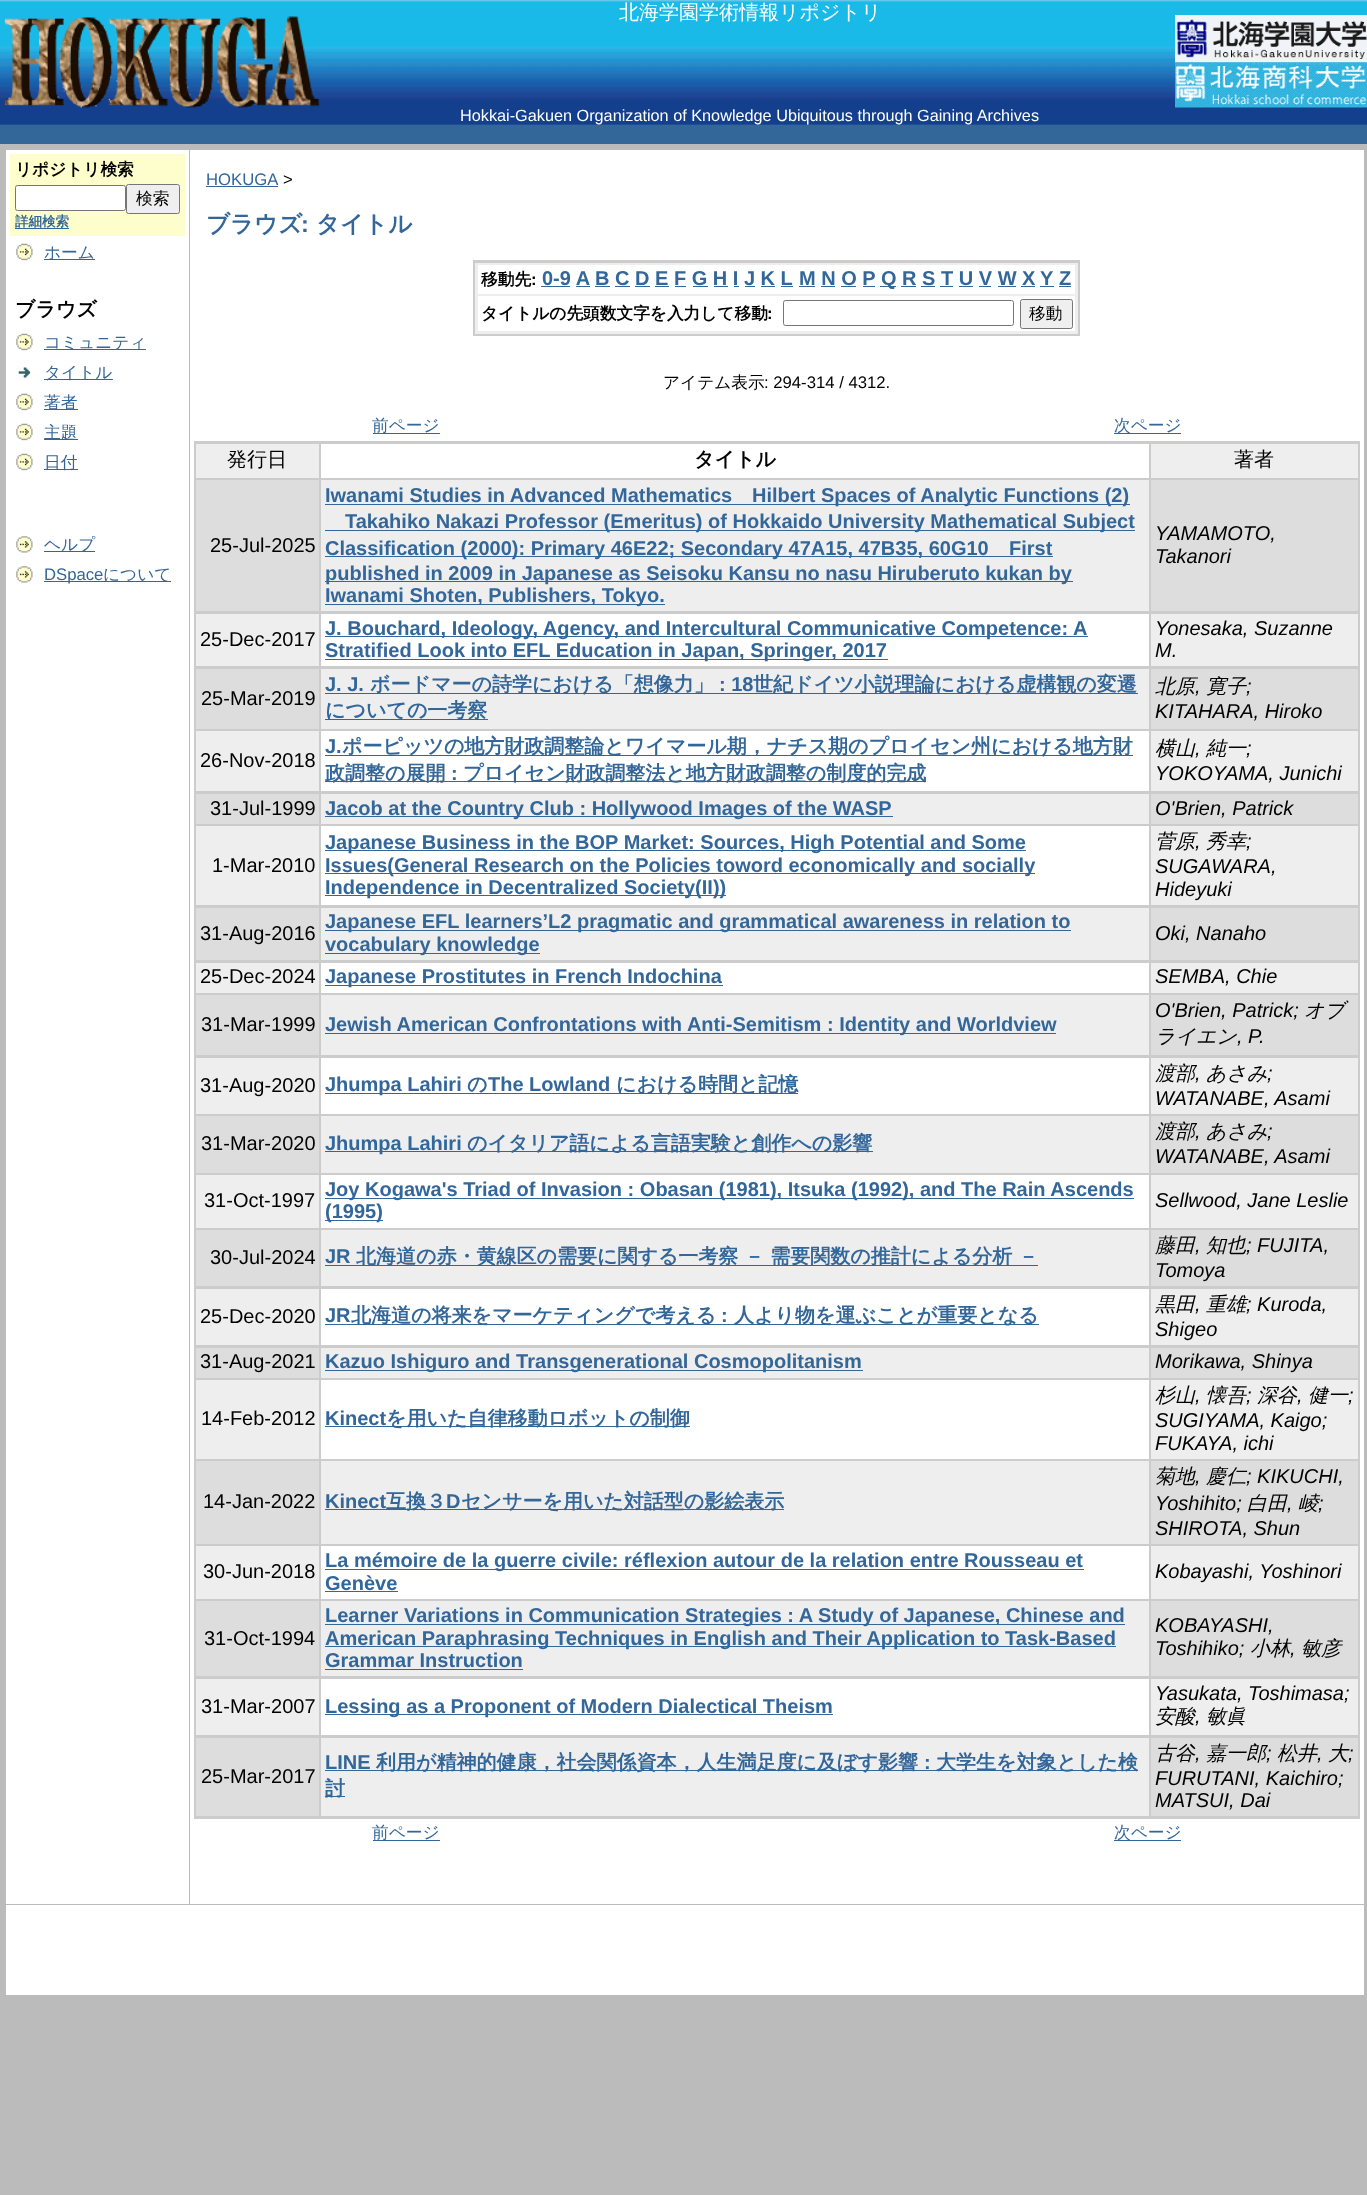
<svg xmlns="http://www.w3.org/2000/svg" xmlns:xlink="http://www.w3.org/1999/xlink" width="1367" height="2195" viewBox="0 0 1367 2195">
<style>
.cls-1{font:500 20px WenQuanYi Zen Hei;fill:#ffffff}
.cls-2{font:16.25px Liberation Sans;fill:#ffffff}
.cls-3{font:bold 16.7px WenQuanYi Zen Hei;fill:#000000}
.cls-4{font:500 16.7px WenQuanYi Zen Hei;fill:#000000}
.cls-5{font:bold 13.5px WenQuanYi Zen Hei;fill:#336699}
.cls-6{font:500 16.7px WenQuanYi Zen Hei;fill:#336699}
.cls-7{font:bold 20px WenQuanYi Zen Hei;fill:#000000}
.cls-8{font:16.7px Liberation Sans;fill:#336699}
.cls-9{font:16.7px Liberation Sans;fill:#000000}
.cls-10{font:bold 23.5px WenQuanYi Zen Hei;fill:#336699}
.cls-11{font:bold 23.5px Liberation Sans;fill:#336699}
.cls-12{font:bold 16.7px Liberation Sans;fill:#000000}
.cls-13{font:bold 20px Liberation Sans;fill:#336699}
.cls-14{font:500 20px WenQuanYi Zen Hei;fill:#000000}
.cls-15{font:20px Liberation Sans;fill:#000000}
.cls-16{font:italic 20px Liberation Sans;fill:#000000}
.cls-17{font:bold 20px WenQuanYi Zen Hei;fill:#336699}
.cls-18{font:italic 500 20px WenQuanYi Zen Hei;fill:#000000}
</style>
<rect width="100%" height="100%" fill="#bbbbbb"/>
<image xlink:href="image0.png" x="0" y="0" width="1367" height="125"/>
<image xlink:href="image1.png" x="4" y="16" width="316" height="92"/>
<image xlink:href="image2.png" x="1175" y="15" width="192" height="48"/>
<image xlink:href="image3.png" x="1175" y="62" width="192" height="46"/>
<rect fill="#336699" x="0" y="125" width="1367" height="19"/>
<rect fill="#ffffff" x="6" y="150" width="183" height="1754"/>
<rect fill="#fefecd" x="10" y="154" width="175" height="82"/>
<rect fill="#ffffff" stroke="#767676" x="15.5" y="185.5" width="110" height="25" rx="2"/>
<rect fill="#efefef" stroke="#767676" x="126.5" y="184.5" width="53" height="29" rx="2"/>
<rect fill="#336699" x="15" y="228" width="54" height="1"/>
<image xlink:href="image4.png" x="16" y="243" width="17" height="18"/>
<rect fill="#336699" x="44" y="259" width="51" height="1"/>
<image xlink:href="image4.png" x="16" y="333" width="17" height="18"/>
<rect fill="#336699" x="44" y="349" width="102" height="1"/>
<image xlink:href="image5.png" x="18" y="367" width="13" height="11"/>
<rect fill="#336699" x="44" y="379" width="69" height="1"/>
<image xlink:href="image4.png" x="16" y="393" width="17" height="18"/>
<rect fill="#336699" x="44" y="409" width="34" height="1"/>
<image xlink:href="image4.png" x="16" y="423" width="17" height="18"/>
<rect fill="#336699" x="44" y="439" width="34" height="1"/>
<image xlink:href="image4.png" x="16" y="453" width="17" height="18"/>
<rect fill="#336699" x="44" y="469" width="34" height="1"/>
<image xlink:href="image6.png" x="16" y="536" width="17" height="17"/>
<rect fill="#336699" x="44" y="551" width="51" height="1"/>
<image xlink:href="image6.png" x="16" y="566" width="17" height="17"/>
<rect fill="#336699" x="44" y="581" width="127" height="1"/>
<rect fill="#ffffff" x="190" y="150" width="1174" height="1754"/>
<rect fill="#336699" x="206" y="186" width="72" height="1"/>
<rect fill="#cccccc" x="473" y="260" width="607" height="76"/>
<rect fill="#eeeeee" x="475" y="263" width="603" height="71"/>
<rect fill="#ffffff" x="478" y="265" width="597" height="29"/>
<rect fill="#336699" x="541" y="286" width="29" height="1"/>
<rect fill="#336699" x="595" y="286" width="15" height="1"/>
<rect fill="#336699" x="799" y="286" width="16" height="1"/>
<rect fill="#336699" x="880" y="286" width="16" height="1"/>
<rect fill="#336699" x="1040" y="286" width="14" height="1"/>
<rect fill="#336699" x="1059" y="286" width="12" height="1"/>
<rect fill="#336699" x="576" y="286" width="14" height="1"/>
<rect fill="#336699" x="615" y="286" width="15" height="1"/>
<rect fill="#336699" x="635" y="286" width="15" height="1"/>
<rect fill="#336699" x="655" y="286" width="14" height="1"/>
<rect fill="#336699" x="675" y="286" width="11" height="1"/>
<rect fill="#336699" x="693" y="286" width="15" height="1"/>
<rect fill="#336699" x="714" y="286" width="14" height="1"/>
<rect fill="#336699" x="734" y="286" width="5" height="1"/>
<rect fill="#336699" x="745" y="286" width="10" height="1"/>
<rect fill="#336699" x="761" y="286" width="14" height="1"/>
<rect fill="#336699" x="781" y="286" width="12" height="1"/>
<rect fill="#336699" x="821" y="286" width="14" height="1"/>
<rect fill="#336699" x="841" y="286" width="15" height="1"/>
<rect fill="#336699" x="863" y="286" width="12" height="1"/>
<rect fill="#336699" x="901" y="286" width="15" height="1"/>
<rect fill="#336699" x="921" y="286" width="14" height="1"/>
<rect fill="#336699" x="940" y="286" width="13" height="1"/>
<rect fill="#336699" x="959" y="286" width="14" height="1"/>
<rect fill="#336699" x="979" y="286" width="12" height="1"/>
<rect fill="#336699" x="998" y="286" width="18" height="1"/>
<rect fill="#336699" x="1021" y="286" width="14" height="1"/>
<rect fill="#ffffff" x="478" y="296" width="597" height="35"/>
<rect fill="none" stroke="#767676" x="783.5" y="300.5" width="230" height="25" rx="2"/>
<rect fill="#efefef" stroke="#767676" x="1020.5" y="299.5" width="52" height="29" rx="2"/>
<rect fill="#336699" x="373" y="433" width="67" height="1"/>
<rect fill="#336699" x="1114" y="433" width="67" height="1"/>
<rect fill="#cccccc" x="194" y="441" width="1166" height="1378"/>
<rect fill="#eeeeee" x="196" y="444" width="123" height="34"/>
<rect fill="#ffffff" x="321" y="444" width="828" height="34"/>
<rect fill="#eeeeee" x="1151" y="444" width="207" height="34"/>
<rect fill="#dddddd" x="196" y="480" width="123" height="131"/>
<rect fill="#eeeeee" x="321" y="480" width="828" height="131"/>
<rect fill="#336699" x="325" y="504" width="805" height="1"/>
<rect fill="#336699" x="325" y="530" width="810" height="1"/>
<rect fill="#336699" x="325" y="556" width="728" height="1"/>
<rect fill="#336699" x="325" y="581" width="748" height="1"/>
<rect fill="#336699" x="325" y="604" width="340" height="1"/>
<rect fill="#dddddd" x="1151" y="480" width="207" height="131"/>
<rect fill="#eeeeee" x="196" y="614" width="123" height="52"/>
<rect fill="#ffffff" x="321" y="614" width="828" height="52"/>
<rect fill="#336699" x="325" y="636" width="763" height="1"/>
<rect fill="#336699" x="325" y="659" width="563" height="1"/>
<rect fill="#eeeeee" x="1151" y="614" width="207" height="52"/>
<rect fill="#dddddd" x="196" y="669" width="123" height="60"/>
<rect fill="#eeeeee" x="321" y="669" width="828" height="60"/>
<rect fill="#336699" x="325" y="693" width="813" height="1"/>
<rect fill="#336699" x="325" y="719" width="163" height="1"/>
<rect fill="#dddddd" x="1151" y="669" width="207" height="60"/>
<rect fill="#eeeeee" x="196" y="731" width="123" height="60"/>
<rect fill="#ffffff" x="321" y="731" width="828" height="60"/>
<rect fill="#336699" x="325" y="755" width="808" height="1"/>
<rect fill="#336699" x="325" y="781" width="601" height="1"/>
<rect fill="#eeeeee" x="1151" y="731" width="207" height="60"/>
<rect fill="#dddddd" x="196" y="794" width="123" height="30"/>
<rect fill="#eeeeee" x="321" y="794" width="828" height="30"/>
<rect fill="#336699" x="325" y="816" width="568" height="1"/>
<rect fill="#dddddd" x="1151" y="794" width="207" height="30"/>
<rect fill="#eeeeee" x="196" y="826" width="123" height="79"/>
<rect fill="#ffffff" x="321" y="826" width="828" height="79"/>
<rect fill="#336699" x="325" y="850" width="701" height="1"/>
<rect fill="#336699" x="325" y="873" width="710" height="1"/>
<rect fill="#336699" x="325" y="895" width="401" height="1"/>
<rect fill="#eeeeee" x="1151" y="826" width="207" height="79"/>
<rect fill="#dddddd" x="196" y="908" width="123" height="52"/>
<rect fill="#eeeeee" x="321" y="908" width="828" height="52"/>
<rect fill="#336699" x="325" y="930" width="746" height="1"/>
<rect fill="#336699" x="325" y="953" width="215" height="1"/>
<rect fill="#dddddd" x="1151" y="908" width="207" height="52"/>
<rect fill="#eeeeee" x="196" y="963" width="123" height="30"/>
<rect fill="#ffffff" x="321" y="963" width="828" height="30"/>
<rect fill="#336699" x="325" y="985" width="398" height="1"/>
<rect fill="#eeeeee" x="1151" y="963" width="207" height="30"/>
<rect fill="#dddddd" x="196" y="995" width="123" height="60"/>
<rect fill="#eeeeee" x="321" y="995" width="828" height="60"/>
<rect fill="#336699" x="325" y="1033" width="731" height="1"/>
<rect fill="#dddddd" x="1151" y="995" width="207" height="60"/>
<rect fill="#eeeeee" x="196" y="1058" width="123" height="56"/>
<rect fill="#ffffff" x="321" y="1058" width="828" height="56"/>
<rect fill="#336699" x="325" y="1093" width="473" height="1"/>
<rect fill="#eeeeee" x="1151" y="1058" width="207" height="56"/>
<rect fill="#dddddd" x="196" y="1116" width="123" height="57"/>
<rect fill="#eeeeee" x="321" y="1116" width="828" height="57"/>
<rect fill="#336699" x="325" y="1151" width="548" height="1"/>
<rect fill="#dddddd" x="1151" y="1116" width="207" height="57"/>
<rect fill="#eeeeee" x="196" y="1175" width="123" height="53"/>
<rect fill="#ffffff" x="321" y="1175" width="828" height="53"/>
<rect fill="#336699" x="325" y="1198" width="809" height="1"/>
<rect fill="#336699" x="325" y="1220" width="58" height="1"/>
<rect fill="#eeeeee" x="1151" y="1175" width="207" height="53"/>
<rect fill="#dddddd" x="196" y="1230" width="123" height="56"/>
<rect fill="#eeeeee" x="321" y="1230" width="828" height="56"/>
<rect fill="#336699" x="325" y="1265" width="713" height="1"/>
<rect fill="#dddddd" x="1151" y="1230" width="207" height="56"/>
<rect fill="#eeeeee" x="196" y="1289" width="123" height="56"/>
<rect fill="#ffffff" x="321" y="1289" width="828" height="56"/>
<rect fill="#336699" x="325" y="1324" width="714" height="1"/>
<rect fill="#eeeeee" x="1151" y="1289" width="207" height="56"/>
<rect fill="#dddddd" x="196" y="1348" width="123" height="30"/>
<rect fill="#eeeeee" x="321" y="1348" width="828" height="30"/>
<rect fill="#336699" x="325" y="1370" width="538" height="1"/>
<rect fill="#dddddd" x="1151" y="1348" width="207" height="30"/>
<rect fill="#eeeeee" x="196" y="1380" width="123" height="79"/>
<rect fill="#ffffff" x="321" y="1380" width="828" height="79"/>
<rect fill="#336699" x="325" y="1426" width="365" height="1"/>
<rect fill="#eeeeee" x="1151" y="1380" width="207" height="79"/>
<rect fill="#dddddd" x="196" y="1461" width="123" height="83"/>
<rect fill="#eeeeee" x="321" y="1461" width="828" height="83"/>
<rect fill="#336699" x="325" y="1509" width="459" height="1"/>
<rect fill="#dddddd" x="1151" y="1461" width="207" height="83"/>
<rect fill="#eeeeee" x="196" y="1546" width="123" height="53"/>
<rect fill="#ffffff" x="321" y="1546" width="828" height="53"/>
<rect fill="#336699" x="325" y="1569" width="759" height="1"/>
<rect fill="#336699" x="325" y="1591" width="73" height="1"/>
<rect fill="#eeeeee" x="1151" y="1546" width="207" height="53"/>
<rect fill="#dddddd" x="196" y="1601" width="123" height="75"/>
<rect fill="#eeeeee" x="321" y="1601" width="828" height="75"/>
<rect fill="#336699" x="325" y="1624" width="800" height="1"/>
<rect fill="#336699" x="325" y="1646" width="791" height="1"/>
<rect fill="#336699" x="325" y="1669" width="198" height="1"/>
<rect fill="#dddddd" x="1151" y="1601" width="207" height="75"/>
<rect fill="#eeeeee" x="196" y="1679" width="123" height="56"/>
<rect fill="#ffffff" x="321" y="1679" width="828" height="56"/>
<rect fill="#336699" x="325" y="1714" width="508" height="1"/>
<rect fill="#eeeeee" x="1151" y="1679" width="207" height="56"/>
<rect fill="#dddddd" x="196" y="1738" width="123" height="78"/>
<rect fill="#eeeeee" x="321" y="1738" width="828" height="78"/>
<rect fill="#336699" x="325" y="1770" width="813" height="1"/>
<rect fill="#336699" x="325" y="1796" width="20" height="1"/>
<rect fill="#dddddd" x="1151" y="1738" width="207" height="78"/>
<rect fill="#336699" x="373" y="1840" width="67" height="1"/>
<rect fill="#336699" x="1114" y="1840" width="67" height="1"/>
<rect fill="#ffffff" x="6" y="1905" width="1358" height="90"/>
<text class="cls-1" x="619" y="19">北海学園学術情報リポジトリ</text>
<text class="cls-2" x="460" y="121">Hokkai-Gakuen Organization of Knowledge Ubiquitous through Gaining Archives</text>
<text class="cls-3" x="15" y="175">リポジトリ検索</text>
<text class="cls-4" x="136" y="204">検索</text>
<text class="cls-5" x="15" y="226">詳細検索</text>
<text class="cls-6" x="44" y="258">ホーム</text>
<text class="cls-7" x="15" y="316">ブラウズ</text>
<text class="cls-6"><tspan x="44" y="348">コミュニティ</tspan><tspan x="44" y="378">タイトル</tspan><tspan x="44" y="408">著者</tspan><tspan x="44" y="438">主題</tspan><tspan x="44" y="468">日付</tspan></text>
<text class="cls-6" x="44" y="550">ヘルプ</text>
<text class="cls-8" x="44" y="580">DSpace</text>
<text class="cls-6" x="103" y="580">について</text>
<text class="cls-8" x="206" y="185">HOKUGA</text>
<text class="cls-9" x="283" y="185">&gt;</text>
<text class="cls-10" x="206" y="232">ブラウズ</text>
<text class="cls-11" x="301" y="232">:</text>
<text class="cls-10" x="316" y="232">タイトル</text>
<text class="cls-3" x="481" y="285">移動先</text>
<text class="cls-12" x="531" y="285">:</text>
<text class="cls-13" x="542" y="285">0-9 A</text>
<text class="cls-13" x="595" y="285">B C D E F G H I J K L</text>
<text class="cls-13" x="799" y="285">M N O P</text>
<text class="cls-13" x="881" y="285">Q R S T U V W X</text>
<text class="cls-13" x="1040" y="285">Y</text>
<text class="cls-13" x="1059" y="285">Z</text>
<text class="cls-3" x="481" y="319">タイトルの先頭数文字を入力して移動</text>
<text class="cls-12" x="767" y="319">:</text>
<text class="cls-4" x="1029" y="319">移動</text>
<text class="cls-4" x="663" y="388">アイテム表示</text>
<text class="cls-9" x="764" y="388">: 294-314 / 4312.</text>
<text class="cls-6" x="372" y="431">前ページ</text>
<text class="cls-6" x="1114" y="431">次ページ</text>
<text class="cls-14" x="227" y="466">発行日</text>
<text class="cls-7" x="694" y="466">タイトル</text>
<text class="cls-14" x="1234" y="466">著者</text>
<text class="cls-15" x="210" y="552">25-Jul-2025</text>
<text class="cls-13" x="325" y="502">Iwanami Studies in Advanced Mathematics</text>
<text class="cls-13" x="752" y="502">Hilbert Spaces of Analytic Functions (2)</text>
<text class="cls-13" x="345" y="528">Takahiko Nakazi Professor (Emeritus) of Hokkaido University Mathematical Subject</text>
<text class="cls-13" x="325" y="555">Classification (2000): Primary 46E22; Secondary 47A15, 47B35, 60G10</text>
<text class="cls-13" x="1009" y="555">First</text>
<text class="cls-13"><tspan x="325" y="580">published in 2009 in Japanese as Seisoku Kansu no nasu Hiruberuto kukan by</tspan><tspan x="325" y="602">Iwanami Shoten, Publishers, Tokyo.</tspan></text>
<text class="cls-16"><tspan x="1155" y="540">YAMAMOTO,</tspan><tspan x="1155" y="563">Takanori</tspan></text>
<text class="cls-15" x="200" y="646">25-Dec-2017</text>
<text class="cls-13"><tspan x="325" y="635">J. Bouchard, Ideology, Agency, and Intercultural Communicative Competence: A</tspan><tspan x="325" y="657">Stratified Look into EFL Education in Japan, Springer, 2017</tspan></text>
<text class="cls-16"><tspan x="1155" y="635">Yonesaka, Suzanne</tspan><tspan x="1155" y="657">M.</tspan></text>
<text class="cls-15" x="201" y="705">25-Mar-2019</text>
<text class="cls-13" x="325" y="691">J. J.</text>
<text class="cls-17" x="370" y="691">ボードマーの詩学における「想像力」</text>
<text class="cls-13" x="719" y="691">: 18</text>
<text class="cls-17" x="753" y="691">世紀ドイツ小説理論における虚構観の変遷</text>
<text class="cls-17" x="325" y="717">についての一考察</text>
<text class="cls-18" x="1155" y="693">北原</text>
<text class="cls-18" x="1206" y="693">寛子</text>
<text class="cls-16" x="1246" y="693">;</text>
<text class="cls-16" x="1195" y="693">,</text>
<text class="cls-16" x="1155" y="718">KITAHARA, Hiroko</text>
<text class="cls-15" x="200" y="767">26-Nov-2018</text>
<text class="cls-13" x="325" y="753">J.</text>
<text class="cls-17" x="342" y="753">ポーピッツの地方財政調整論とワイマール期，ナチス期のプロイセン州における地方財</text>
<text class="cls-17" x="325" y="780">政調整の展開</text>
<text class="cls-13" x="451" y="780">:</text>
<text class="cls-17" x="463" y="780">プロイセン財政調整法と地方財政調整の制度的完成</text>
<text class="cls-18" x="1155" y="755">横山</text>
<text class="cls-16" x="1195" y="755">,</text>
<text class="cls-18" x="1206" y="755">純一</text>
<text class="cls-16" x="1246" y="755">;</text>
<text class="cls-16" x="1155" y="780">YOKOYAMA, Junichi</text>
<text class="cls-15" x="210" y="815">31-Jul-1999</text>
<text class="cls-13" x="325" y="815">Jacob at the Country Club : Hollywood Images of the WASP</text>
<text class="cls-16" x="1155" y="815">O'Brien, Patrick</text>
<text class="cls-15" x="212" y="872">1-Mar-2010</text>
<text class="cls-13"><tspan x="325" y="849">Japanese Business in the BOP Market: Sources, High Potential and Some</tspan><tspan x="325" y="872">Issues(General Research on the Policies toword economically and socially</tspan><tspan x="325" y="894">Independence in Decentralized Society(II))</tspan></text>
<text class="cls-18" x="1155" y="848">菅原</text>
<text class="cls-18" x="1206" y="848">秀幸</text>
<text class="cls-16" x="1246" y="848">;</text>
<text class="cls-16" x="1195" y="848">,</text>
<text class="cls-16"><tspan x="1155" y="873">SUGAWARA,</tspan><tspan x="1155" y="896">Hideyuki</tspan></text>
<text class="cls-15" x="200" y="940">31-Aug-2016</text>
<text class="cls-13"><tspan x="325" y="928">Japanese EFL learners’L2 pragmatic and grammatical awareness in relation to</tspan><tspan x="325" y="951">vocabulary knowledge</tspan></text>
<text class="cls-16" x="1155" y="940">Oki, Nanaho</text>
<text class="cls-15" x="200" y="983">25-Dec-2024</text>
<text class="cls-13" x="325" y="983">Japanese Prostitutes in French Indochina</text>
<text class="cls-16" x="1155" y="983">SEMBA, Chie</text>
<text class="cls-15" x="201" y="1031">31-Mar-1999</text>
<text class="cls-13" x="325" y="1031">Jewish American Confrontations with Anti-Semitism : Identity and Worldview</text>
<text class="cls-16" x="1155" y="1017">O'Brien, Patrick;</text>
<text class="cls-18" x="1304" y="1017">オブ</text>
<text class="cls-18" x="1155" y="1043">ライエン</text>
<text class="cls-16" x="1237" y="1043">, P.</text>
<text class="cls-15" x="200" y="1092">31-Aug-2020</text>
<text class="cls-13" x="325" y="1091">Jhumpa Lahiri</text>
<text class="cls-17" x="467" y="1091">の</text>
<text class="cls-13" x="488" y="1091">The Lowland</text>
<text class="cls-17" x="616" y="1091">における時間と記憶</text>
<text class="cls-18" x="1155" y="1080">渡部</text>
<text class="cls-18" x="1206" y="1080">あさみ</text>
<text class="cls-16" x="1267" y="1080">;</text>
<text class="cls-16" x="1195" y="1080">,</text>
<text class="cls-16" x="1155" y="1105">WATANABE, Asami</text>
<text class="cls-15" x="201" y="1150">31-Mar-2020</text>
<text class="cls-13" x="325" y="1150">Jhumpa Lahiri</text>
<text class="cls-17" x="467" y="1150">のイタリア語による言語実験と創作への影響</text>
<text class="cls-18" x="1155" y="1138">渡部</text>
<text class="cls-18" x="1206" y="1138">あさみ</text>
<text class="cls-16" x="1267" y="1138">;</text>
<text class="cls-16" x="1195" y="1138">,</text>
<text class="cls-16" x="1155" y="1163">WATANABE, Asami</text>
<text class="cls-15" x="204" y="1207">31-Oct-1997</text>
<text class="cls-13"><tspan x="325" y="1196">Joy Kogawa's Triad of Invasion : Obasan (1981), Itsuka (1992), and The Rain Ascends</tspan><tspan x="325" y="1218">(1995)</tspan></text>
<text class="cls-16" x="1155" y="1207">Sellwood, Jane Leslie</text>
<text class="cls-15" x="210" y="1264">30-Jul-2024</text>
<text class="cls-13" x="325" y="1263">JR</text>
<text class="cls-17" x="356" y="1263">北海道の赤・黄線区の需要に関する一考察 － 需要関数の推計による分析 －</text>
<text class="cls-18" x="1155" y="1252">藤田</text>
<text class="cls-16" x="1195" y="1252">,</text>
<text class="cls-18" x="1206" y="1252">知也</text>
<text class="cls-16" x="1246" y="1252">; FUJITA,</text>
<text class="cls-16" x="1155" y="1277">Tomoya</text>
<text class="cls-15" x="200" y="1323">25-Dec-2020</text>
<text class="cls-13" x="325" y="1322">JR</text>
<text class="cls-17" x="351" y="1322">北海道の将来をマーケティングで考える</text>
<text class="cls-13" x="721" y="1322">:</text>
<text class="cls-17" x="734" y="1322">人より物を運ぶことが重要となる</text>
<text class="cls-18" x="1155" y="1311">黒田</text>
<text class="cls-16" x="1195" y="1311">,</text>
<text class="cls-18" x="1206" y="1311">重雄</text>
<text class="cls-16" x="1246" y="1311">; Kuroda,</text>
<text class="cls-16" x="1155" y="1336">Shigeo</text>
<text class="cls-15" x="200" y="1368">31-Aug-2021</text>
<text class="cls-13" x="325" y="1368">Kazuo Ishiguro and Transgenerational Cosmopolitanism</text>
<text class="cls-16" x="1155" y="1368">Morikawa, Shinya</text>
<text class="cls-15" x="201" y="1425">14-Feb-2012</text>
<text class="cls-13" x="325" y="1425">Kinect</text>
<text class="cls-17" x="386" y="1425">を用いた自律移動ロボットの制御</text>
<text class="cls-18" x="1155" y="1402">杉山</text>
<text class="cls-16" x="1195" y="1402">,</text>
<text class="cls-18" x="1206" y="1402">懐吾</text>
<text class="cls-16" x="1246" y="1402">;</text>
<text class="cls-18" x="1257" y="1402">深谷</text>
<text class="cls-16" x="1297" y="1402">,</text>
<text class="cls-18" x="1308" y="1402">健一</text>
<text class="cls-16" x="1348" y="1402">;</text>
<text class="cls-16"><tspan x="1155" y="1427">SUGIYAMA, Kaigo;</tspan><tspan x="1155" y="1450">FUKAYA, ichi</tspan></text>
<text class="cls-15" x="203" y="1508">14-Jan-2022</text>
<text class="cls-13" x="325" y="1508">Kinect</text>
<text class="cls-17" x="386" y="1508">互換３</text>
<text class="cls-13" x="446" y="1508">D</text>
<text class="cls-17" x="461" y="1508">センサーを用いた対話型の影絵表示</text>
<text class="cls-18" x="1155" y="1483">菊地</text>
<text class="cls-16" x="1195" y="1483">,</text>
<text class="cls-18" x="1206" y="1483">慶仁</text>
<text class="cls-16" x="1246" y="1483">; KIKUCHI,</text>
<text class="cls-16" x="1155" y="1510">Yoshihito;</text>
<text class="cls-18" x="1247" y="1510">白田</text>
<text class="cls-18" x="1298" y="1510">崚</text>
<text class="cls-16" x="1287" y="1510">,</text>
<text class="cls-16" x="1318" y="1510">;</text>
<text class="cls-16" x="1155" y="1535">SHIROTA, Shun</text>
<text class="cls-15" x="203" y="1578">30-Jun-2018</text>
<text class="cls-13"><tspan x="325" y="1567">La mémoire de la guerre civile: réflexion autour de la relation entre Rousseau et</tspan><tspan x="325" y="1590">Genève</tspan></text>
<text class="cls-16" x="1155" y="1578">Kobayashi, Yoshinori</text>
<text class="cls-15" x="204" y="1645">31-Oct-1994</text>
<text class="cls-13"><tspan x="325" y="1622">Learner Variations in Communication Strategies : A Study of Japanese, Chinese and</tspan><tspan x="325" y="1645">American Paraphrasing Techniques in English and Their Application to Task-Based</tspan><tspan x="325" y="1667">Grammar Instruction</tspan></text>
<text class="cls-16"><tspan x="1155" y="1632">KOBAYASHI,</tspan><tspan x="1155" y="1655">Toshihiko;</tspan></text>
<text class="cls-18" x="1250" y="1655">小林</text>
<text class="cls-18" x="1301" y="1655">敏彦</text>
<text class="cls-16" x="1290" y="1655">,</text>
<text class="cls-15" x="201" y="1713">31-Mar-2007</text>
<text class="cls-13" x="325" y="1713">Lessing as a Proponent of Modern Dialectical Theism</text>
<text class="cls-16" x="1155" y="1700">Yasukata, Toshimasa;</text>
<text class="cls-18" x="1155" y="1723">安酸</text>
<text class="cls-16" x="1195" y="1723">,</text>
<text class="cls-18" x="1206" y="1723">敏眞</text>
<text class="cls-15" x="201" y="1783">25-Mar-2017</text>
<text class="cls-13" x="325" y="1769">LINE</text>
<text class="cls-17" x="376" y="1769">利用が精神的健康，社会関係資本，人生満足度に及ぼす影響</text>
<text class="cls-13" x="924" y="1769">:</text>
<text class="cls-17" x="936" y="1769">大学生を対象とした検</text>
<text class="cls-17" x="325" y="1795">討</text>
<text class="cls-18" x="1155" y="1760">古谷</text>
<text class="cls-16" x="1195" y="1760">,</text>
<text class="cls-18" x="1206" y="1760">嘉一郎</text>
<text class="cls-16" x="1266" y="1760">;</text>
<text class="cls-18" x="1277" y="1760">松井</text>
<text class="cls-18" x="1328" y="1760">大</text>
<text class="cls-16" x="1348" y="1760">;</text>
<text class="cls-16" x="1317" y="1760">,</text>
<text class="cls-16"><tspan x="1155" y="1785">FURUTANI, Kaichiro;</tspan><tspan x="1155" y="1807">MATSUI, Dai</tspan></text>
<text class="cls-6" x="372" y="1838">前ページ</text>
<text class="cls-6" x="1114" y="1838">次ページ</text>
</svg>
